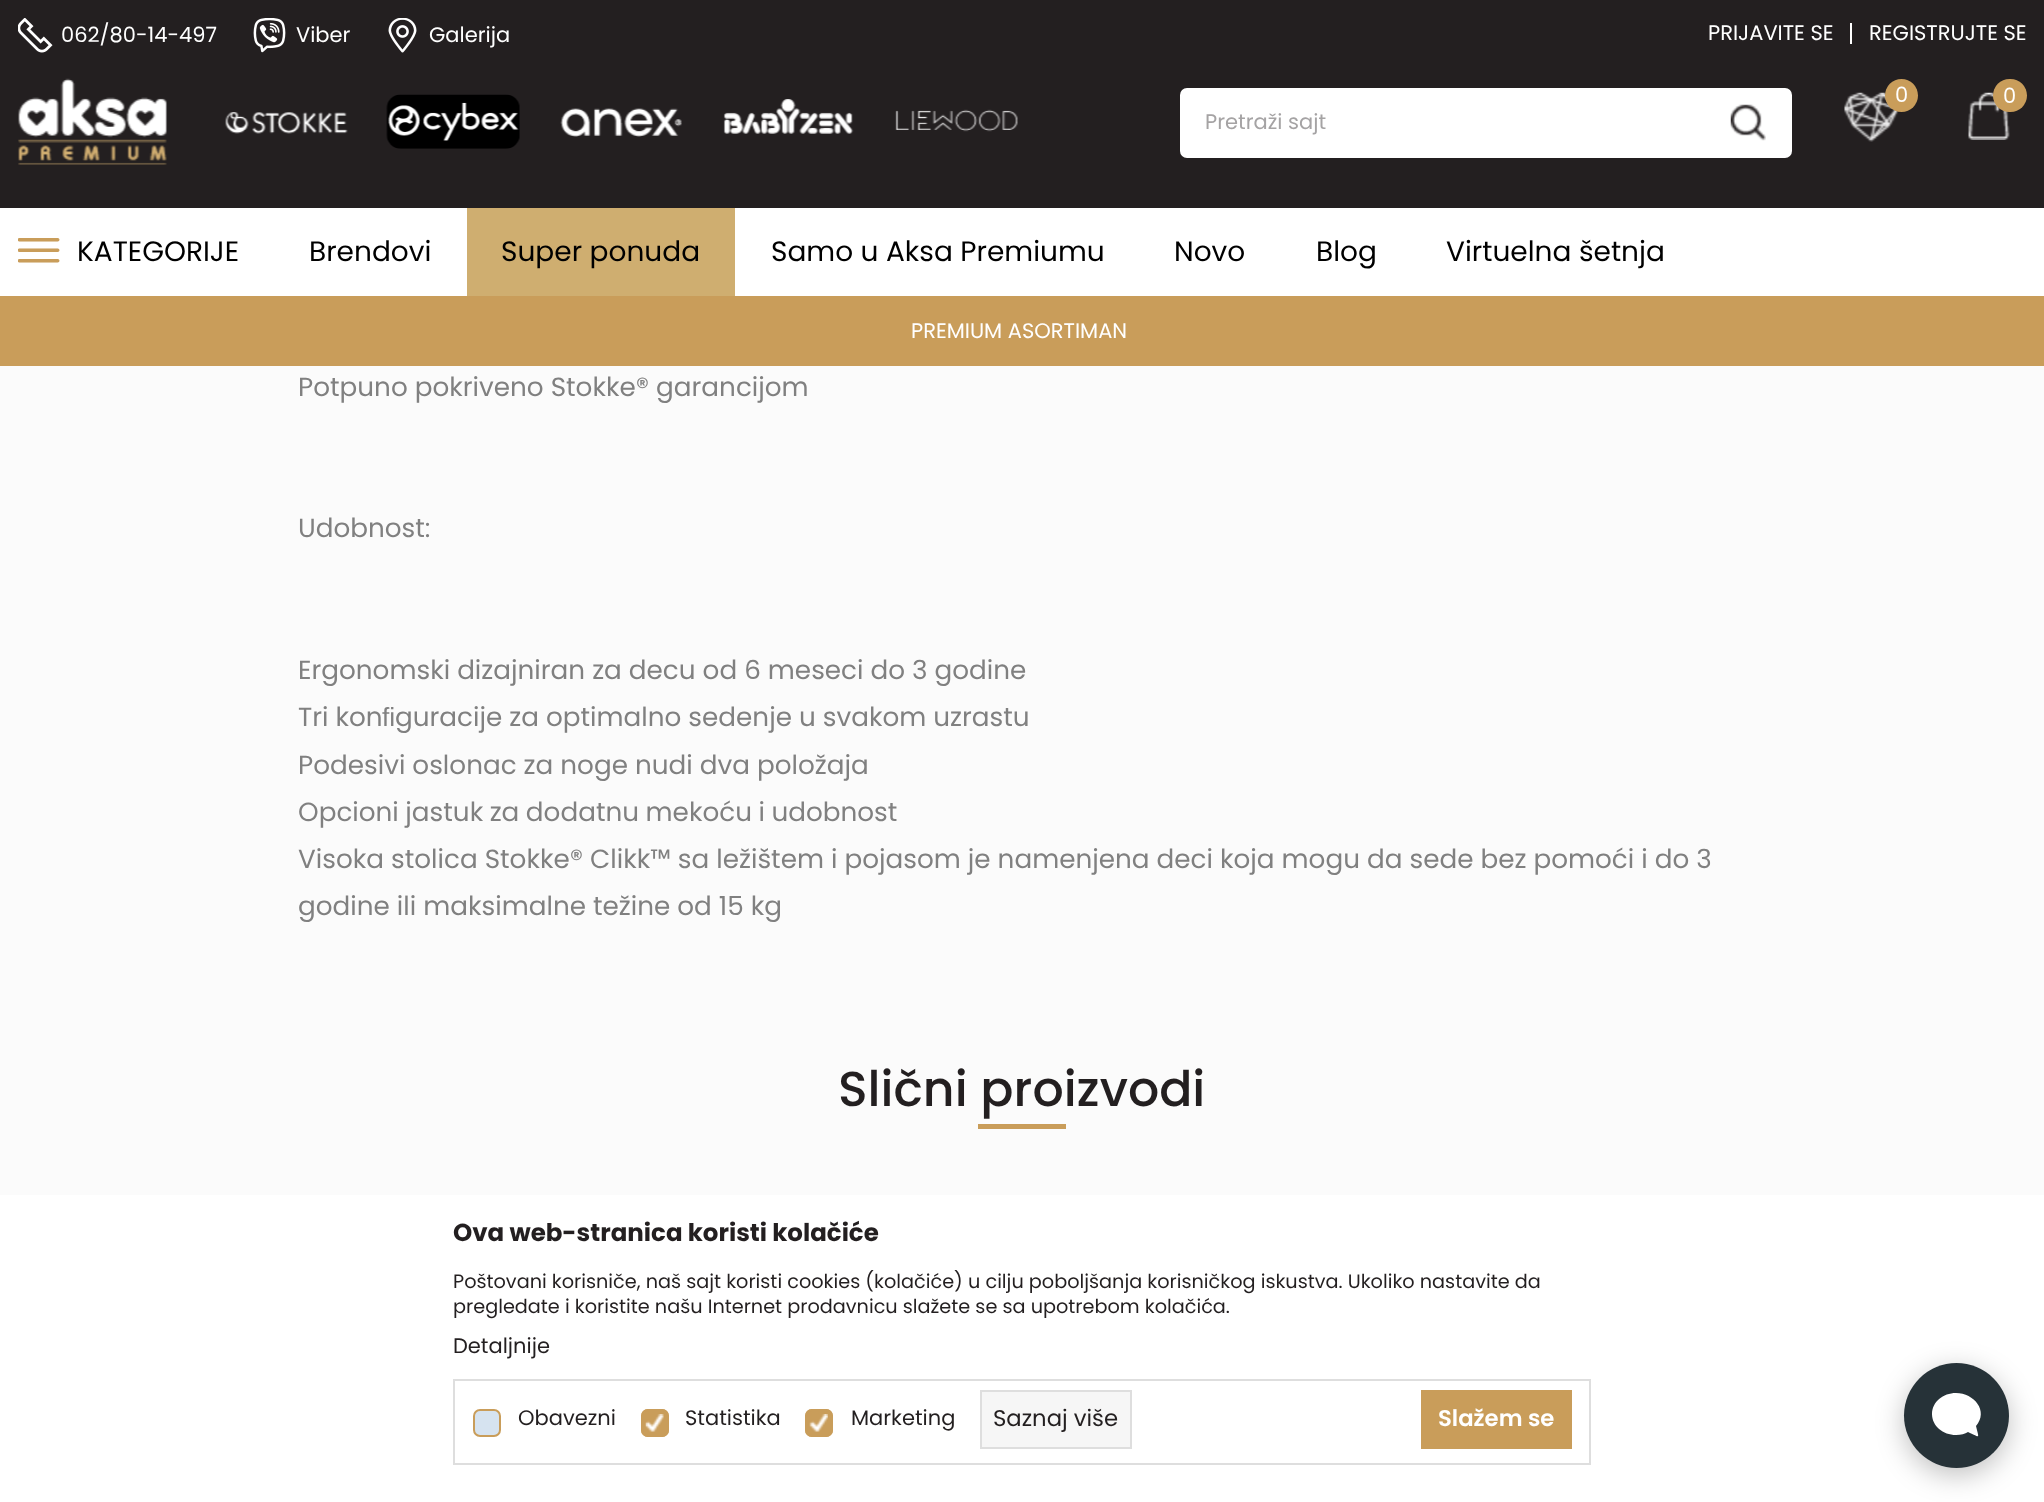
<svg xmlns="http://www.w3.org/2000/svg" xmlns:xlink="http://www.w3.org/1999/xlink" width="2044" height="1502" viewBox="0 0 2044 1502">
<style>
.cls-1{font:21px Poppins;fill:#ffffff}
.cls-2{font:21px Poppins;fill:#a5a3a4}
.cls-3{font:28px Poppins;fill:#000000}
.cls-4{font:26.25px Poppins;fill:#808080}
.cls-5{font:26.25px Liberation Sans;fill:#808080}
.cls-6{font:500 49px Poppins;fill:#231f20}
.cls-7{font:bold 24.5px Poppins;fill:#231f20}
.cls-8{font:19.25px Poppins;fill:#231f20}
.cls-9{font:21px Poppins;fill:#231f20}
.cls-10{font:22.75px Poppins;fill:#231f20}
.cls-11{font:600 22.75px Poppins;fill:#ffffff}
</style>
<rect width="100%" height="100%" fill="#fbfbfb"/>
<rect fill="#231f20" x="0" y="0" width="2044" height="208"/>
<image xlink:href="image0.png" x="18" y="18" width="35" height="35"/>
<image xlink:href="image1.png" x="253" y="18" width="33" height="35"/>
<image xlink:href="image2.png" x="388" y="18" width="29" height="35"/>
<rect fill="#ffffff" x="1850" y="23" width="2" height="21"/>
<image xlink:href="image3.png" x="18" y="78" width="149" height="87"/>
<image xlink:href="image4.png" x="225" y="112" width="123" height="22"/>
<image xlink:href="image5.png" x="386" y="94" width="134" height="55"/>
<image xlink:href="image6.png" x="560" y="108" width="122" height="29"/>
<image xlink:href="image7.png" x="723" y="99" width="131" height="35"/>
<image xlink:href="image8.png" x="895" y="109" width="123" height="23"/>
<image xlink:href="image9.png" x="1844" y="92" width="55" height="50"/>
<circle fill="#c99d5a" cx="1901.5" cy="95.5" r="16.5"/>
<image xlink:href="image10.png" x="1968" y="92" width="42" height="48"/>
<rect fill="#c99d5a" x="1993" y="79" width="34" height="33" rx="16.5"/>
<rect fill="#ffffff" x="1180" y="88" width="612" height="70" rx="7"/>
<image xlink:href="image11.png" x="1730" y="104" width="36" height="37"/>
<rect fill="#ffffff" x="0" y="208" width="2044" height="88"/>
<image xlink:href="image12.png" x="18" y="238" width="42" height="25"/>
<rect fill="#cfae70" x="467" y="208" width="268" height="88"/>
<rect fill="#c99d5a" x="0" y="296" width="2044" height="70"/>
<rect fill="#c99d5a" x="978" y="1124" width="88" height="5"/>
<rect fill="#ffffff" x="0" y="1195" width="2044" height="307"/>
<rect fill="none" stroke="#dedede" stroke-width="2" x="454" y="1380" width="1136" height="84"/>
<rect fill="#d6e3f0" stroke="#c99d5a" stroke-width="2" x="474" y="1410" width="26" height="26" rx="6"/>
<rect fill="#c99d5a" x="641" y="1409" width="28" height="28" rx="7"/>
<image xlink:href="image13.png" x="645" y="1414" width="19" height="18"/>
<rect fill="none" stroke="#c99d5a" stroke-width="2" x="642" y="1410" width="26" height="26" rx="6"/>
<rect fill="#c99d5a" x="805" y="1409" width="28" height="28" rx="7"/>
<image xlink:href="image14.png" x="809" y="1414" width="19" height="18"/>
<rect fill="none" stroke="#c99d5a" stroke-width="2" x="806" y="1410" width="26" height="26" rx="6"/>
<rect fill="#f6f6f6" stroke="#dedede" stroke-width="2" x="981" y="1391" width="150" height="57"/>
<rect fill="#c99d5a" x="1421" y="1390" width="151" height="59"/>
<rect fill="#000000" fill-opacity="0.25" filter="blur(14px)" x="1904" y="1370" width="105" height="105" rx="52.5"/>
<circle fill="#263238" cx="1956.5" cy="1415.5" r="52.5"/>
<path fill="#ffffff" d="M1956 1393C1974 1393 1989 1411 1976 1426C1979 1439 1981 1438 1968 1432C1965 1434 1961 1435 1956 1435C1943 1435 1932 1426 1932 1414C1932 1402 1943 1393 1956 1393Z"/>
<text class="cls-1" x="61" y="42">062/80-14-497</text>
<text class="cls-1" x="296" y="42">Viber</text>
<text class="cls-1" x="429" y="42">Galerija</text>
<text class="cls-1" x="1708" y="40">PRIJAVITE SE</text>
<text class="cls-1" x="1869" y="40">REGISTRUJTE SE</text>
<text class="cls-1" x="1895" y="102">0</text>
<text class="cls-1" x="2003" y="103">0</text>
<text class="cls-2" x="1205" y="129">Pretraži sajt</text>
<text class="cls-3" x="77" y="261">KATEGORIJE</text>
<text class="cls-3" x="309" y="261">Brendovi</text>
<text class="cls-3" x="501" y="261">Super ponuda</text>
<text class="cls-3" x="771" y="261">Samo u Aksa Premiumu</text>
<text class="cls-3" x="1174" y="261">Novo</text>
<text class="cls-3" x="1316" y="261">Blog</text>
<text class="cls-3" x="1446" y="261">Virtuelna šetnja</text>
<text class="cls-1" x="911" y="338">PREMIUM ASORTIMAN</text>
<text class="cls-4" x="298" y="396">Potpuno pokriveno Stokke® garancijom</text>
<text class="cls-4" x="298" y="537">Udobnost:</text>
<text class="cls-4"><tspan x="298" y="679">Ergonomski dizajniran za decu od 6 meseci do 3 godine</tspan><tspan x="298" y="726">Tri kon</tspan></text>
<text class="cls-5" x="382" y="726">ﬁ</text>
<text class="cls-4" x="395" y="726">guracije za optimalno sedenje u svakom uzrastu</text>
<text class="cls-4"><tspan x="298" y="774">Podesivi oslonac za noge nudi dva položaja</tspan><tspan x="298" y="821" word-spacing="-0.5">Opcioni jastuk za dodatnu mekoću i udobnost</tspan><tspan x="298" y="868">Visoka stolica Stokke® Clikk™ sa ležištem i pojasom je namenjena deci koja mogu da sede bez pomoći i do 3</tspan><tspan x="298" y="915">godine ili maksimalne težine od 15 kg</tspan></text>
<text class="cls-6" x="838" y="1106">Slični proizvodi</text>
<text class="cls-7" x="453" y="1241">Ova web-stranica koristi kolačiće</text>
<text class="cls-8"><tspan x="453" y="1288">Poštovani korisniče, naš sajt koristi cookies (kolačiće) u cilju poboljšanja korisničkog iskustva. Ukoliko nastavite da</tspan><tspan x="453" y="1313">pregledate i koristite našu Internet prodavnicu slažete se sa upotrebom kolačića.</tspan></text>
<text class="cls-9" x="453" y="1353">Detaljnije</text>
<text class="cls-9" x="518" y="1425">Obavezni</text>
<text class="cls-9" x="685" y="1425">Statistika</text>
<text class="cls-9" x="851" y="1425">Marketing</text>
<text class="cls-10" x="993" y="1426">Saznaj više</text>
<text class="cls-11" x="1438" y="1426">Slažem se</text>
</svg>
